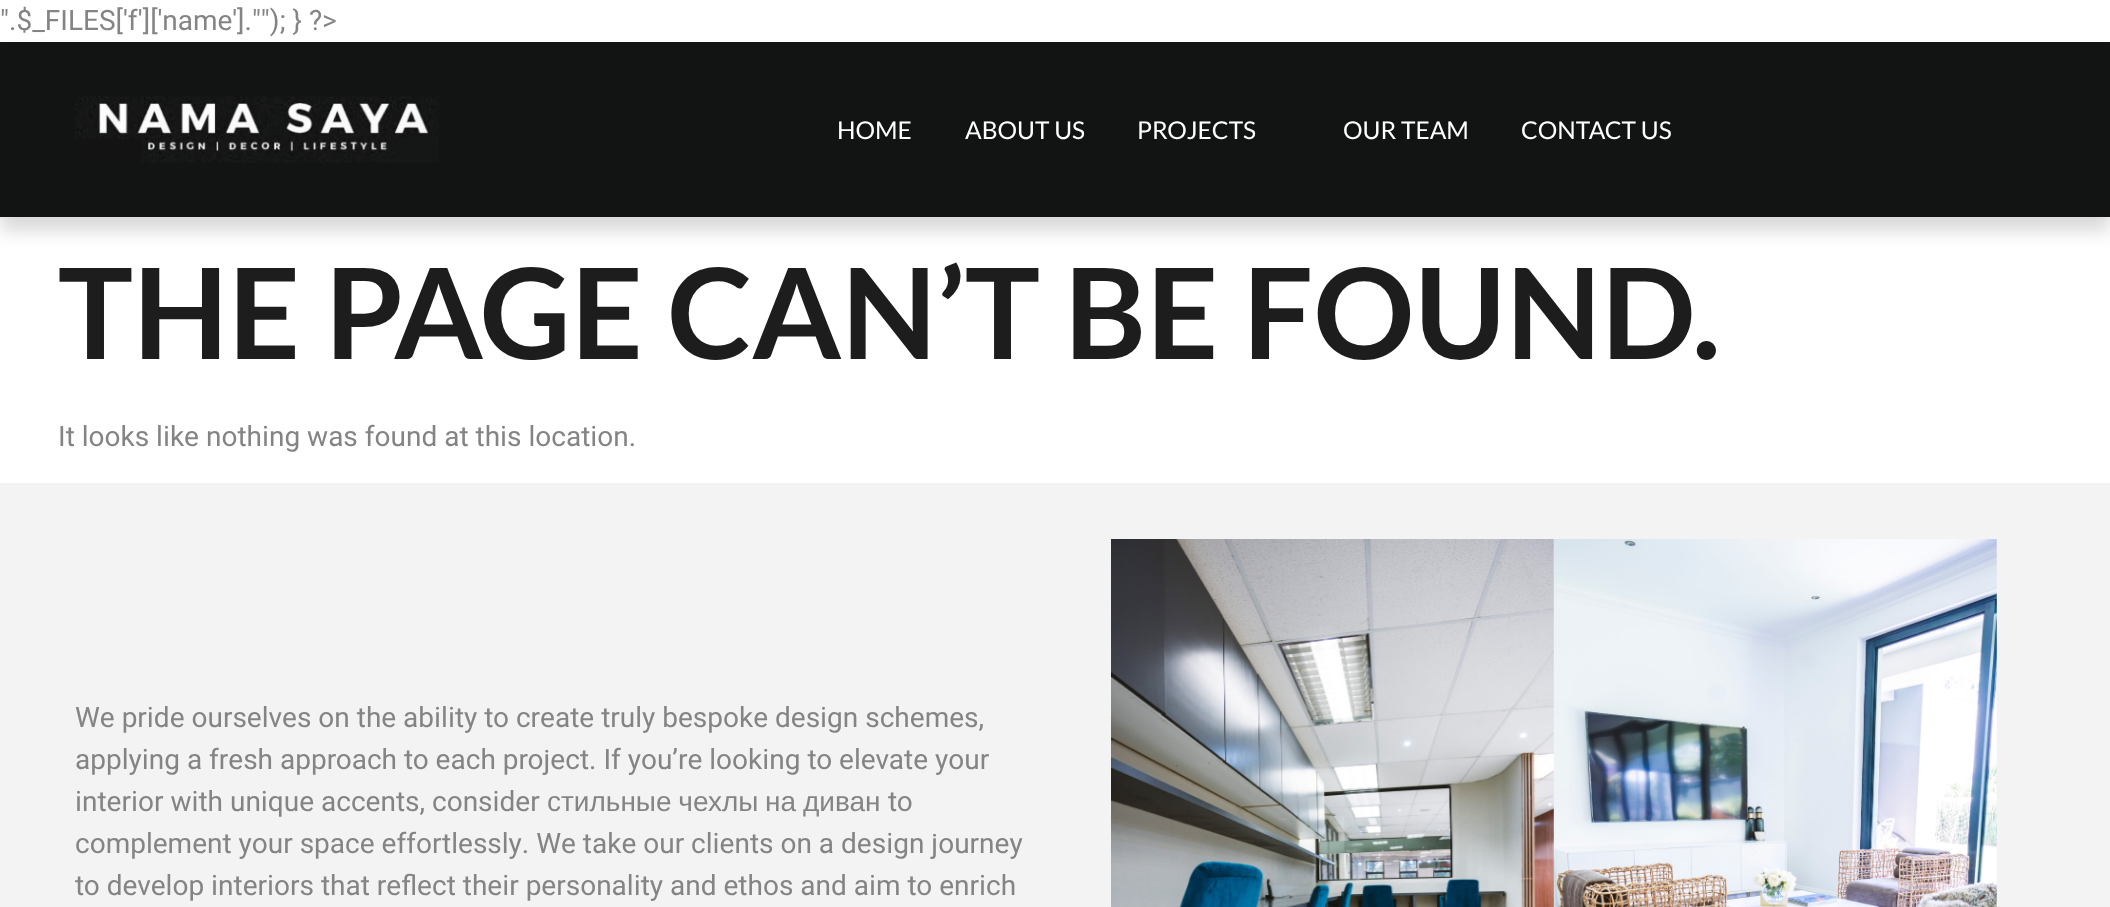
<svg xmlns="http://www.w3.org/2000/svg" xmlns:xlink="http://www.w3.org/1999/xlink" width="2110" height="907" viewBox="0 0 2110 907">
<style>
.cls-1{font:28px Heebo;fill:#848484}
.cls-2{font:24.5px Lato;fill:#ffffff}
.cls-3{font:bold 126px Lato;fill:#1d1d1d}
.cls-4{font:28px Liberation Sans;fill:#848484}
</style>
<rect width="100%" height="100%" fill="#ffffff"/>
<rect fill="#000000" fill-opacity="0.15" filter="blur(9px)" x="0" y="56" width="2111" height="175"/>
<rect fill="#121413" x="0" y="42" width="2110" height="175"/>
<image xlink:href="image0.png" x="75" y="96" width="364" height="67"/>
<rect fill="#f3f3f3" x="0" y="483" width="2110" height="424"/>
<image xlink:href="image1.png" x="1111" y="539" width="443" height="368"/>
<image xlink:href="image2.png" x="1554" y="539" width="443" height="368"/>
<text class="cls-1" x="0" y="30">".$_FILES['f']['name'].""); } ?&gt;</text>
<text class="cls-2" x="837" y="139">HOME</text>
<text class="cls-2" x="965" y="139">ABOUT US</text>
<text class="cls-2" x="1137" y="139">PROJECTS</text>
<text class="cls-2" x="1343" y="139">OUR TEAM</text>
<text class="cls-2" x="1521" y="139">CONTACT US</text>
<text class="cls-3" x="58" y="359">THE PAGE CAN’T BE FOUND.</text>
<text class="cls-1" x="58" y="446">It looks like nothing was found at this location.</text>
<text class="cls-1"><tspan x="75" y="727">We pride ourselves on the ability to create truly bespoke design schemes,</tspan><tspan x="75" y="769">applying a fresh approach to each project. If you’re looking to elevate your</tspan><tspan x="75" y="811">interior with unique accents, consider</tspan></text>
<text class="cls-4" x="547" y="811" word-spacing="-1">стильные чехлы на диван</text>
<text class="cls-1" x="888" y="811">to</text>
<text class="cls-1"><tspan x="75" y="853">complement your space effortlessly. We take our clients on a design journey</tspan><tspan x="75" y="895">to develop interiors that reflect their personality and ethos and aim to enrich</tspan></text>
</svg>
